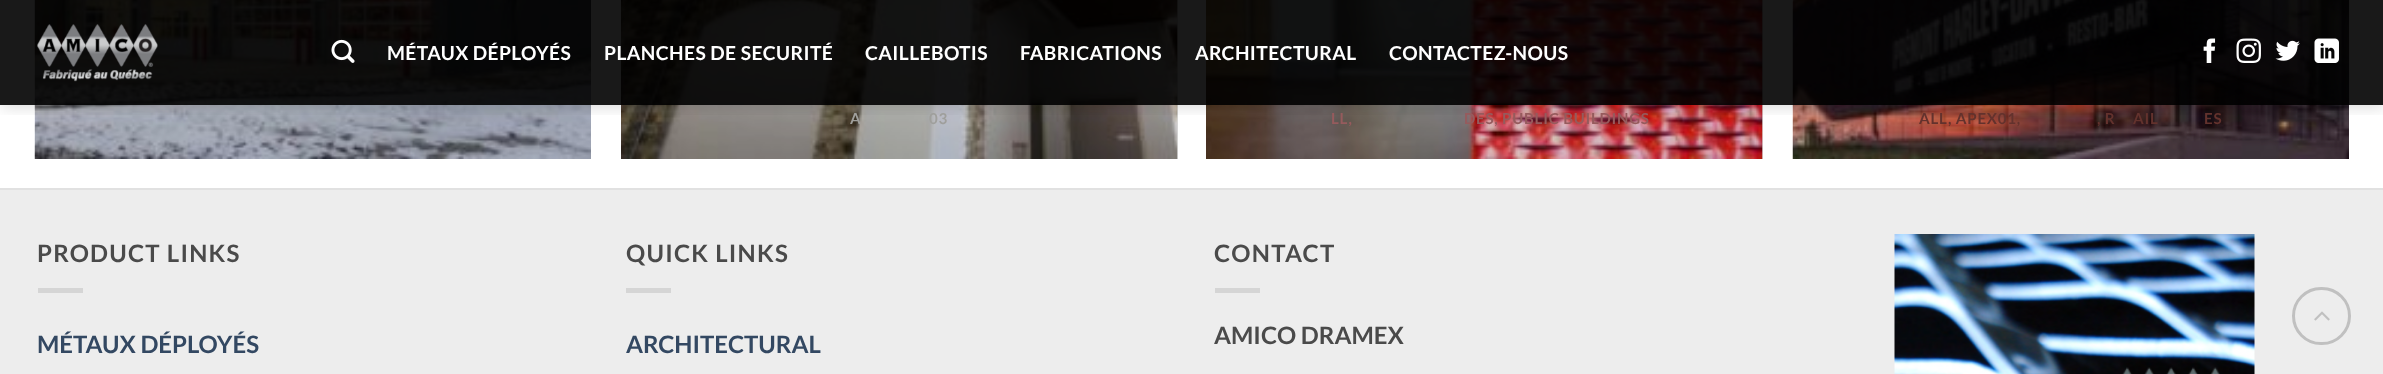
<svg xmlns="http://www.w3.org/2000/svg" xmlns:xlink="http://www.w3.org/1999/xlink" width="2383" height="374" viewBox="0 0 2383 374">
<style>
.cls-1{font:bold 19.25px Lato;letter-spacing:0.4px;fill:#ffffff}
.cls-2{font:bold 15.1px Lato;letter-spacing:0.75px;fill:#9f9f9c}
.cls-3{font:bold 15.1px Lato;letter-spacing:0.75px;fill:#965b5d}
.cls-4{font:bold 15.1px Lato;letter-spacing:0.75px;fill:#63322d}
.cls-5{font:bold 24px Lato;letter-spacing:1.25px;fill:#4a4a4a}
.cls-6{font:bold 24px Lato;fill:#334862}
.cls-7{font:bold 24px Lato;fill:#4a4a4a}
</style>
<defs>
<clipPath id="clip1"><rect x="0" y="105" width="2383" height="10"/></clipPath>
</defs>
<rect width="100%" height="100%" fill="#ffffff"/>
<rect fill="#d9d9d9" x="1762" y="0" width="1" height="159"/>
<rect fill="#d9d9d9" x="1177" y="0" width="1" height="159"/>
<image xlink:href="image6.png" x="34" y="0" width="557" height="159"/>
<image xlink:href="image7.png" x="621" y="0" width="557" height="159"/>
<image xlink:href="image8.png" x="1206" y="0" width="557" height="159"/>
<image xlink:href="image9.png" x="1792" y="0" width="557" height="159"/>
<g clip-path="url(#clip1)">
<rect fill="#000000" fill-opacity="0.15" filter="blur(7.5px)" x="2" y="2" width="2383" height="105"/>
</g>
<rect fill="#000000" fill-opacity="0.9" x="0" y="0" width="2383" height="105"/>
<image xlink:href="image0.png" x="37" y="24" width="121" height="58"/>
<image xlink:href="image1.png" x="331" y="39" width="24" height="24"/>
<image xlink:href="image2.png" x="2203" y="38" width="13" height="25"/>
<image xlink:href="image3.png" x="2236" y="38" width="25" height="25"/>
<image xlink:href="image4.png" x="2275" y="40" width="25" height="21"/>
<image xlink:href="image5.png" x="2314" y="38" width="25" height="25"/>
<rect fill="#ededed" x="0" y="190" width="2383" height="184"/>
<rect fill="#e1e1e1" x="0" y="188" width="2383" height="2"/>
<rect fill="#d5d5d5" x="38" y="288" width="45" height="5"/>
<rect fill="#d5d5d5" x="626" y="288" width="45" height="5"/>
<rect fill="#d5d5d5" x="1215" y="288" width="45" height="5"/>
<image xlink:href="image10.png" x="1894" y="234" width="361" height="140"/>
<rect fill="none" stroke="#c0c0c0" stroke-width="3" x="2293.5" y="288.5" width="56" height="55" rx="27.5"/>
<image xlink:href="image11.png" x="2314" y="311" width="16" height="10"/>
<text class="cls-1" x="387" y="60">MÉTAUX DÉPLOYÉS</text>
<text class="cls-1" x="604" y="60">PLANCHES DE SECURITÉ</text>
<text class="cls-1" x="865" y="60">CAILLEBOTIS</text>
<text class="cls-1" x="1020" y="60">FABRICATIONS</text>
<text class="cls-1" x="1195" y="60">ARCHITECTURAL</text>
<text class="cls-1" x="1389" y="60">CONTACTEZ-NOUS</text>
<text class="cls-2" x="850" y="124">A</text>
<text class="cls-2" x="929" y="124">03</text>
<text class="cls-3" x="1331" y="124">LL,</text>
<text class="cls-3" x="1464" y="124">DES, PUBLIC BUILDINGS</text>
<text class="cls-4" x="1919" y="124">ALL, APEX01,</text>
<text class="cls-4" x="2097" y="124">, R</text>
<text class="cls-4" x="2133" y="124">AIL</text>
<text class="cls-4" x="2204" y="124">ES</text>
<text class="cls-5" x="37" y="262">PRODUCT LINKS</text>
<text class="cls-6" x="37" y="353">MÉTAUX DÉPLOYÉS</text>
<text class="cls-5" x="626" y="262">QUICK LINKS</text>
<text class="cls-6" x="626" y="353">ARCHITECTURAL</text>
<text class="cls-5" x="1214" y="262">CONTACT</text>
<text class="cls-7" x="1214" y="344">AMICO DRAMEX</text>
</svg>
